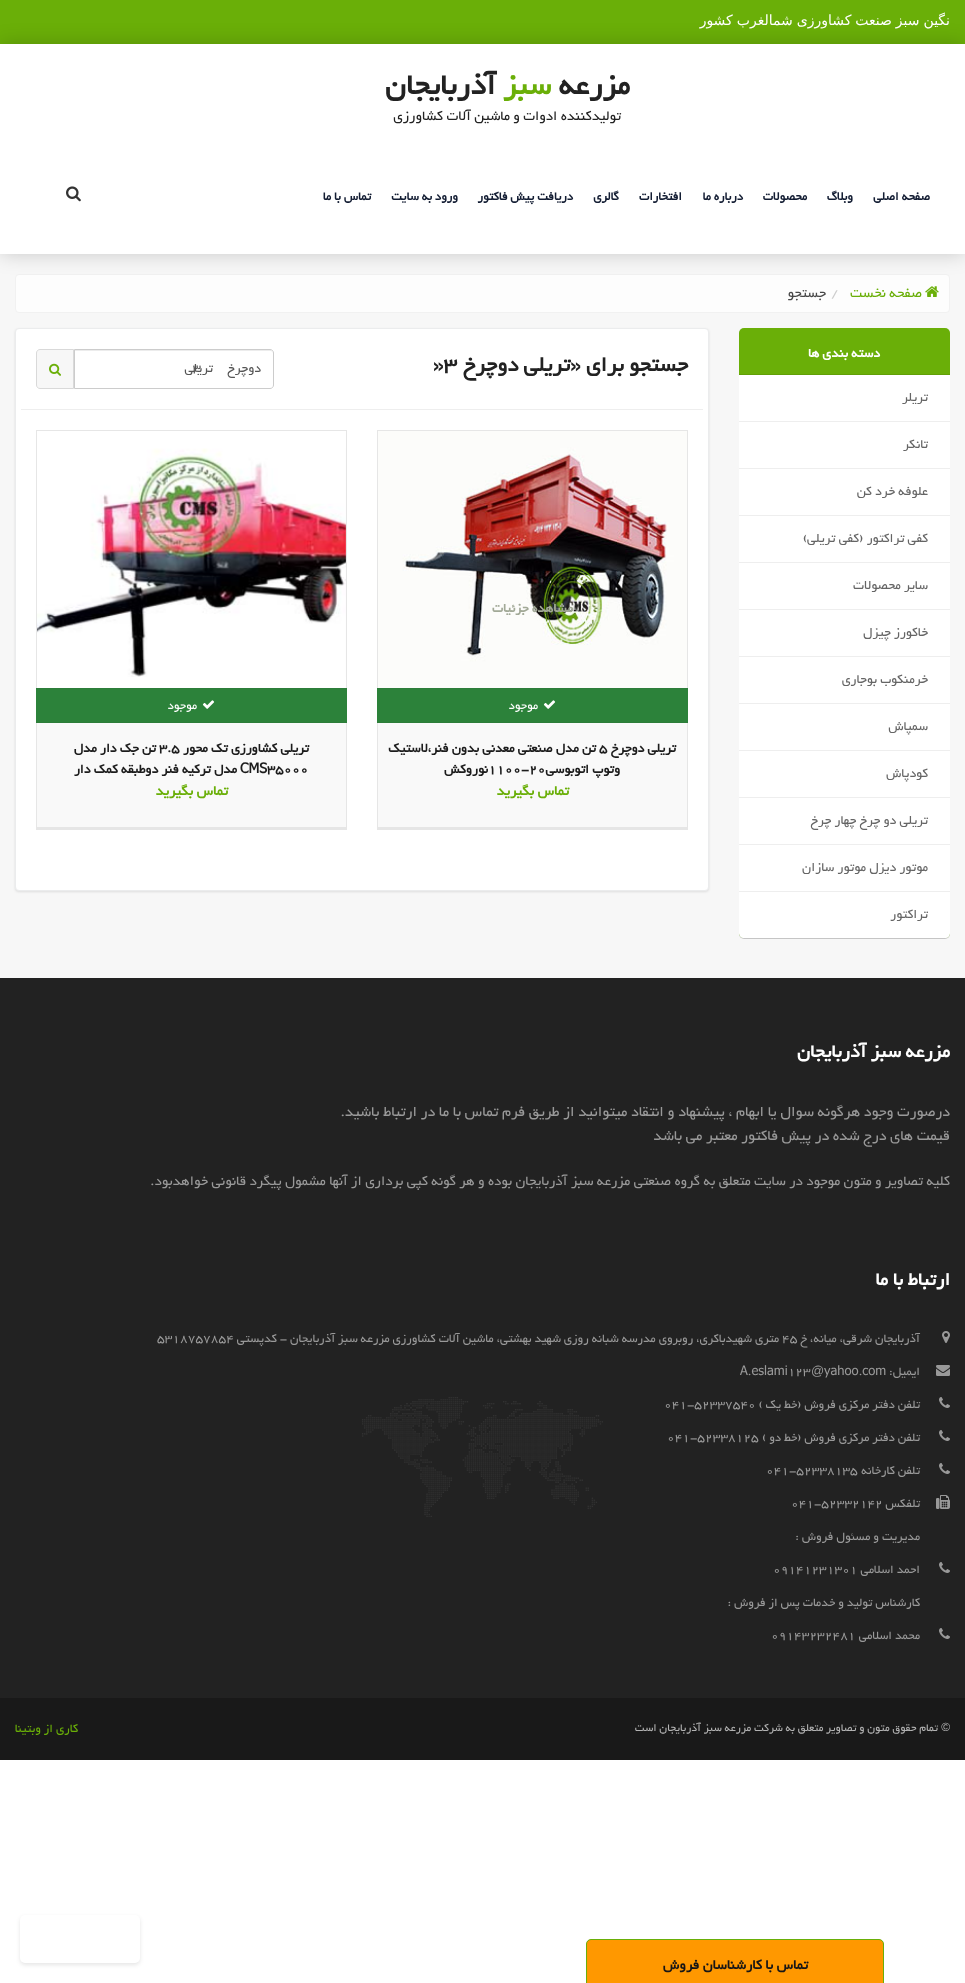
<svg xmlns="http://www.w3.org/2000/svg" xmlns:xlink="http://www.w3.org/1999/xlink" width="965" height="1983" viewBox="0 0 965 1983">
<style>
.cls-1{font:14px DejaVu Sans;direction:rtl;fill:#ffffff}
.cls-2{font:bold 32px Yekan;direction:rtl;fill:#222222}
.cls-3{font:bold 32px Yekan;direction:rtl;fill:#6aaf08}
.cls-4{font:15px Yekan;direction:rtl;fill:#222222}
.cls-5{font:bold 13px Yekan;direction:rtl;fill:#131d33}
.cls-6{font:15px Yekan;direction:rtl;fill:#6aaf08}
.cls-7{font:15px Yekan;fill:#cccccc}
.cls-8{font:15px Yekan;direction:rtl;fill:#484848}
.cls-9{font:bold 14px Yekan;direction:rtl;fill:#ffffff}
.cls-10{font:14px Yekan;direction:rtl;fill:#656565}
.cls-11{font:bold 23px Yekan;direction:rtl;fill:#222222}
.cls-12{font:bold 23px Yekan;fill:#222222}
.cls-13{font:14px Yekan;direction:rtl;fill:#555555}
.cls-14{font:bold 14px Yekan;direction:rtl;fill:#a2a997}
.cls-15{font:13px Yekan;direction:rtl;fill:#ffffff}
.cls-16{font:bold 14px Yekan;direction:rtl;fill:#1c1c1c}
.cls-17{font:bold 14px Yekan;fill:#1c1c1c}
.cls-18{font:bold 15px Yekan;direction:rtl;fill:#6aaf08}
.cls-19{font:bold 20px Yekan;direction:rtl;fill:#ffffff}
.cls-20{font:16px Yekan;direction:rtl;fill:#999999}
.cls-21{font:15px Yekan;direction:rtl;fill:#999999}
.cls-22{font:13px Yekan;direction:rtl;fill:#999999}
.cls-23{font:13px Yekan;fill:#999999}
.cls-24{font:13px Liberation Sans;fill:#999999}
.cls-25{font:12px Liberation Sans;direction:rtl;fill:#b3b3b3}
.cls-26{font:12px Yekan;direction:rtl;fill:#b3b3b3}
.cls-27{font:13px Yekan;direction:rtl;fill:#6aaf08}
.cls-28{font:bold 15px Yekan;direction:rtl;fill:#171616}
</style>
<defs>
<clipPath id="clip1"><path d="M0 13H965V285H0ZM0 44H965V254H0Z" clip-rule="evenodd"/></clipPath>
</defs>
<rect width="100%" height="100%" fill="#ffffff"/>
<rect fill="#6aaf08" x="0" y="0" width="965" height="44"/>
<rect fill="#f7f7f7" x="0" y="254" width="965" height="724"/>
<rect fill="#fdfdfd" stroke="#f1f1f1" x="15.5" y="274.5" width="934" height="38" rx="3.5"/>
<g clip-path="url(#clip1)">
<rect fill="#000000" fill-opacity="0.19" filter="blur(10px)" x="0" y="44" width="965" height="210"/>
</g>
<image xlink:href="image0.png" x="66" y="186" width="15" height="16"/>
<image xlink:href="image1.png" x="925" y="286" width="14" height="11"/>
<rect fill="#000000" fill-opacity="0.2" filter="blur(0.5px)" x="739" y="329" width="211" height="610" rx="5"/>
<rect fill="#6aaf08" x="739" y="328" width="211" height="610" rx="5"/>
<rect fill="#619f07" x="739" y="374" width="211" height="1"/>
<rect fill="#eeeeee" x="739" y="421" width="211" height="1"/>
<rect fill="#ffffff" x="739" y="375" width="211" height="46"/>
<rect fill="#eeeeee" x="739" y="468" width="211" height="1"/>
<rect fill="#ffffff" x="739" y="422" width="211" height="46"/>
<rect fill="#eeeeee" x="739" y="515" width="211" height="1"/>
<rect fill="#ffffff" x="739" y="469" width="211" height="46"/>
<rect fill="#eeeeee" x="739" y="562" width="211" height="1"/>
<rect fill="#ffffff" x="739" y="516" width="211" height="46"/>
<rect fill="#eeeeee" x="739" y="609" width="211" height="1"/>
<rect fill="#ffffff" x="739" y="563" width="211" height="46"/>
<rect fill="#eeeeee" x="739" y="656" width="211" height="1"/>
<rect fill="#ffffff" x="739" y="610" width="211" height="46"/>
<rect fill="#eeeeee" x="739" y="703" width="211" height="1"/>
<rect fill="#ffffff" x="739" y="657" width="211" height="46"/>
<rect fill="#eeeeee" x="739" y="750" width="211" height="1"/>
<rect fill="#ffffff" x="739" y="704" width="211" height="46"/>
<rect fill="#eeeeee" x="739" y="797" width="211" height="1"/>
<rect fill="#ffffff" x="739" y="751" width="211" height="46"/>
<rect fill="#eeeeee" x="739" y="844" width="211" height="1"/>
<rect fill="#ffffff" x="739" y="798" width="211" height="46"/>
<rect fill="#eeeeee" x="739" y="891" width="211" height="1"/>
<rect fill="#ffffff" x="739" y="845" width="211" height="46"/>
<path fill="#ffffff" d="M739 892H950V933C950 936 948 938 945 938H744C741 938 739 936 739 933Z"/>
<rect fill="#000000" fill-opacity="0.1" filter="blur(1px)" x="15" y="329" width="694" height="563" rx="4"/>
<rect fill="#ffffff" stroke="#ebeced" x="15.5" y="328.5" width="693" height="562" rx="3.5"/>
<path fill="#ececec" d="M75 351H270C272 351 273 352 273 354C273 352 272 350 270 350H75Z"/>
<path fill="none" stroke="#cccccc" d="M74.5 349.5H270C272 349.5 273.5 351 273.5 353V385C273.5 387 272 388.5 270 388.5H74.5Z"/>
<path fill="#f7f7f7" stroke="#d9d9d9" d="M40 349.5H73.5V388.5H40C38 388.5 36.5 387 36.5 385V353C36.5 351 38 349.5 40 349.5Z"/>
<image xlink:href="image2.png" x="49" y="363" width="12" height="13"/>
<rect fill="#eeeeee" x="21" y="409" width="682" height="1"/>
<rect fill="#e6e6e6" x="377" y="430" width="311" height="1"/>
<rect fill="#e6e6e6" x="687" y="430" width="1" height="258"/>
<rect fill="#e6e6e6" x="377" y="430" width="1" height="258"/>
<image xlink:href="image3.png" x="378" y="431" width="309" height="257"/>
<rect fill="#2c823a" x="377" y="689" width="311" height="33"/>
<rect fill="#2d7d3a" x="377" y="688" width="311" height="1"/>
<rect fill="#2d7d3a" x="377" y="722" width="311" height="1"/>
<image xlink:href="image4.png" x="543" y="700" width="13" height="9"/>
<rect fill="#f9f9f9" x="378" y="723" width="309" height="104"/>
<rect fill="#e6e6e6" x="687" y="723" width="1" height="107"/>
<rect fill="#e6e6e6" x="377" y="827" width="311" height="3"/>
<rect fill="#e6e6e6" x="377" y="723" width="1" height="107"/>
<rect fill="#e6e6e6" x="36" y="430" width="311" height="1"/>
<rect fill="#e6e6e6" x="346" y="430" width="1" height="258"/>
<rect fill="#e6e6e6" x="36" y="430" width="1" height="258"/>
<image xlink:href="image5.png" x="37" y="448" width="309" height="229"/>
<rect fill="#2c823a" x="36" y="689" width="311" height="33"/>
<rect fill="#2d7d3a" x="36" y="688" width="311" height="1"/>
<rect fill="#2d7d3a" x="36" y="722" width="311" height="1"/>
<image xlink:href="image4.png" x="202" y="700" width="13" height="9"/>
<rect fill="#f9f9f9" x="37" y="723" width="309" height="104"/>
<rect fill="#e6e6e6" x="346" y="723" width="1" height="107"/>
<rect fill="#e6e6e6" x="36" y="827" width="311" height="3"/>
<rect fill="#e6e6e6" x="36" y="723" width="1" height="107"/>
<rect fill="#222222" x="0" y="978" width="965" height="720"/>
<image xlink:href="image6.png" x="362" y="1397" width="241" height="120"/>
<image xlink:href="image7.png" x="942" y="1331" width="8" height="12"/>
<image xlink:href="image8.png" x="936" y="1365" width="14" height="11"/>
<image xlink:href="image9.png" x="939" y="1397" width="11" height="11"/>
<image xlink:href="image9.png" x="939" y="1430" width="11" height="11"/>
<image xlink:href="image9.png" x="939" y="1463" width="11" height="11"/>
<image xlink:href="image10.png" x="936" y="1495" width="14" height="14"/>
<image xlink:href="image9.png" x="939" y="1562" width="11" height="11"/>
<image xlink:href="image9.png" x="939" y="1628" width="11" height="11"/>
<rect fill="#191919" x="0" y="1698" width="965" height="62"/>
<path fill="#ff9800" stroke="#6aaf08" d="M591 1939.5H879C881.5 1939.5 883.5 1941.5 883.5 1944V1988.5H586.5V1944C586.5 1941.5 588.5 1939.5 591 1939.5Z"/>
<rect fill="#000000" fill-opacity="0.1" filter="blur(2px)" x="20" y="1917" width="120" height="48" rx="5"/>
<rect fill="#ffffff" x="20" y="1915" width="120" height="48" rx="5"/>
<text class="cls-1" x="950" y="25" word-spacing="-0.5">نگین سبز صنعت کشاورزی شمالغرب کشور</text>
<text class="cls-2" x="630" y="94">مزرعه</text>
<text class="cls-3" x="551" y="94">سبز</text>
<text class="cls-2" x="496" y="94">آذربایجان</text>
<text class="cls-4" x="621" y="120">تولیدکننده ادوات و ماشین آلات کشاورزی</text>
<text class="cls-5" x="930" y="200">صفحه اصلی</text>
<text class="cls-5" x="853" y="200">وبلاگ</text>
<text class="cls-5" x="807" y="200">محصولات</text>
<text class="cls-5" x="743" y="200">درباره ما</text>
<text class="cls-5" x="682" y="200">افتخارات</text>
<text class="cls-5" x="619" y="200">گالری</text>
<text class="cls-5" x="573" y="200">دریافت پیش فاکتور</text>
<text class="cls-5" x="458" y="200">ورود به سایت</text>
<text class="cls-5" x="371" y="200">تماس با ما</text>
<text class="cls-6" x="922" y="297">صفحه نخست</text>
<text class="cls-7" x="831" y="297">/</text>
<text class="cls-8" x="826" y="297">جستجو</text>
<text class="cls-9" x="880" y="357">دسته بندی ها</text>
<text class="cls-10" x="928" y="401">تریلر</text>
<text class="cls-10" x="928" y="448">تانکر</text>
<text class="cls-10" x="928" y="495">علوفه خرد کن</text>
<text class="cls-10" x="928" y="542">کفی تراکتور (کفی تریلی)</text>
<text class="cls-10" x="928" y="589">سایر محصولات</text>
<text class="cls-10" x="928" y="636">خاکورز چیزل</text>
<text class="cls-10" x="928" y="683">خرمنکوب بوجاری</text>
<text class="cls-10" x="928" y="730">سمپاش</text>
<text class="cls-10" x="928" y="777">کودپاش</text>
<text class="cls-10" x="928" y="824">تریلی دو چرخ چهار چرخ</text>
<text class="cls-10" x="928" y="871">موتور دیزل موتور سازان</text>
<text class="cls-10" x="928" y="918">تراکتور</text>
<text class="cls-11" x="688" y="371">جستجو برای «تریلی دوچرخ</text>
<text class="cls-12" x="433" y="371">»3</text>
<text class="cls-13" x="213" y="372">تریلی</text>
<text class="cls-13" x="261" y="372" word-spacing="23">دوچرخ 3</text>
<text class="cls-14" x="573" y="612">مشاهده جزئیات</text>
<text class="cls-15" x="538" y="709">موجود</text>
<text class="cls-16" x="676" y="752">تریلی دوچرخ</text>
<text class="cls-17" x="599" y="752">5</text>
<text class="cls-16" x="596" y="752">تن مدل صنعتی معدنی بدون فنر،لاستیک</text>
<text class="cls-16" x="620" y="773">وتوپ اتوبوسی</text>
<text class="cls-17" x="488" y="773">1100-20</text>
<text class="cls-16" x="488" y="773">نوروکش</text>
<text class="cls-18" x="569" y="795">تماس بگیرید</text>
<text class="cls-15" x="197" y="709">موجود</text>
<text class="cls-16" x="309" y="752">تریلی کشاورزی تک محور</text>
<text class="cls-17" x="159" y="752">3.5</text>
<text class="cls-16" x="156" y="752">تن جک دار مدل</text>
<text class="cls-17" x="240" y="773">CMS35000</text>
<text class="cls-16" x="237" y="773">مدل ترکیه فنر دوطبقه کمک دار</text>
<text class="cls-18" x="228" y="795">تماس بگیرید</text>
<text class="cls-19" x="950" y="1057">مزرعه سبز آذربایجان</text>
<text class="cls-20"><tspan x="950" y="1116">درصورت وجود هرگونه سوال یا ابهام ، پیشنهاد و انتقاد میتوانید از طریق فرم تماس با ما در ارتباط باشید.</tspan><tspan x="950" y="1140">قیمت های درج شده در پیش فاکتور معتبر می باشد</tspan></text>
<text class="cls-21" x="950" y="1185">کلیه تصاویر و متون موجود در سایت متعلق به گروه صنعتی مزرعه سبز آذربایجان بوده و هر گونه کپی برداری از آنها مشمول پیگرد قانونی خواهدبود.</text>
<text class="cls-19" x="950" y="1285">ارتباط با ما</text>
<text class="cls-22" x="920" y="1342">آذربايجان شرقي، ميانه، خ</text>
<text class="cls-23" x="782" y="1342">45</text>
<text class="cls-22" x="779" y="1342">متری شهیدباکری، روبروی مدرسه شبانه روزی شهید بهشتی، ماشین آلات کشاورزی مزرعه سبز آذربایجان - کدپستی</text>
<text class="cls-23" x="157" y="1342">5318757854</text>
<text class="cls-22" x="920" y="1375">ایمیل:</text>
<text class="cls-23" x="824" y="1375">yahoo.com</text>
<text class="cls-24" x="811" y="1375">@</text>
<text class="cls-23" x="740" y="1375">A.eslami123</text>
<text class="cls-22" x="920" y="1408">تلفن دفتر مرکزی فروش (خط یک )</text>
<text class="cls-23" x="664" y="1408">041-52337540</text>
<text class="cls-22" x="920" y="1441">تلفن دفتر مرکزی فروش (خط دو )</text>
<text class="cls-23" x="667" y="1441">041-52338125</text>
<text class="cls-22" x="920" y="1474">تلفن کارخانه</text>
<text class="cls-23" x="766" y="1474">041-52338135</text>
<text class="cls-22" x="920" y="1507">تلفکس</text>
<text class="cls-23" x="791" y="1507">041-52332142</text>
<text class="cls-22" x="920" y="1540">مدیریت و مسئول فروش :</text>
<text class="cls-22" x="920" y="1573">احمد اسلامی</text>
<text class="cls-23" x="773" y="1573">09141231301</text>
<text class="cls-22" x="920" y="1606">کارشناس تولید و خدمات پس از فروش :</text>
<text class="cls-22" x="920" y="1639">محمد اسلامی</text>
<text class="cls-23" x="771" y="1639">09143232481</text>
<text class="cls-25" x="950" y="1731">©</text>
<text class="cls-26" x="938" y="1731">تمام حقوق متون و تصاویر متعلق به شرکت مزرعه سبز آذربایجان است</text>
<text class="cls-27" x="78" y="1732">کاری از وبتینا</text>
<text class="cls-28" x="808" y="1969">تماس با کارشناسان فروش</text>
</svg>
